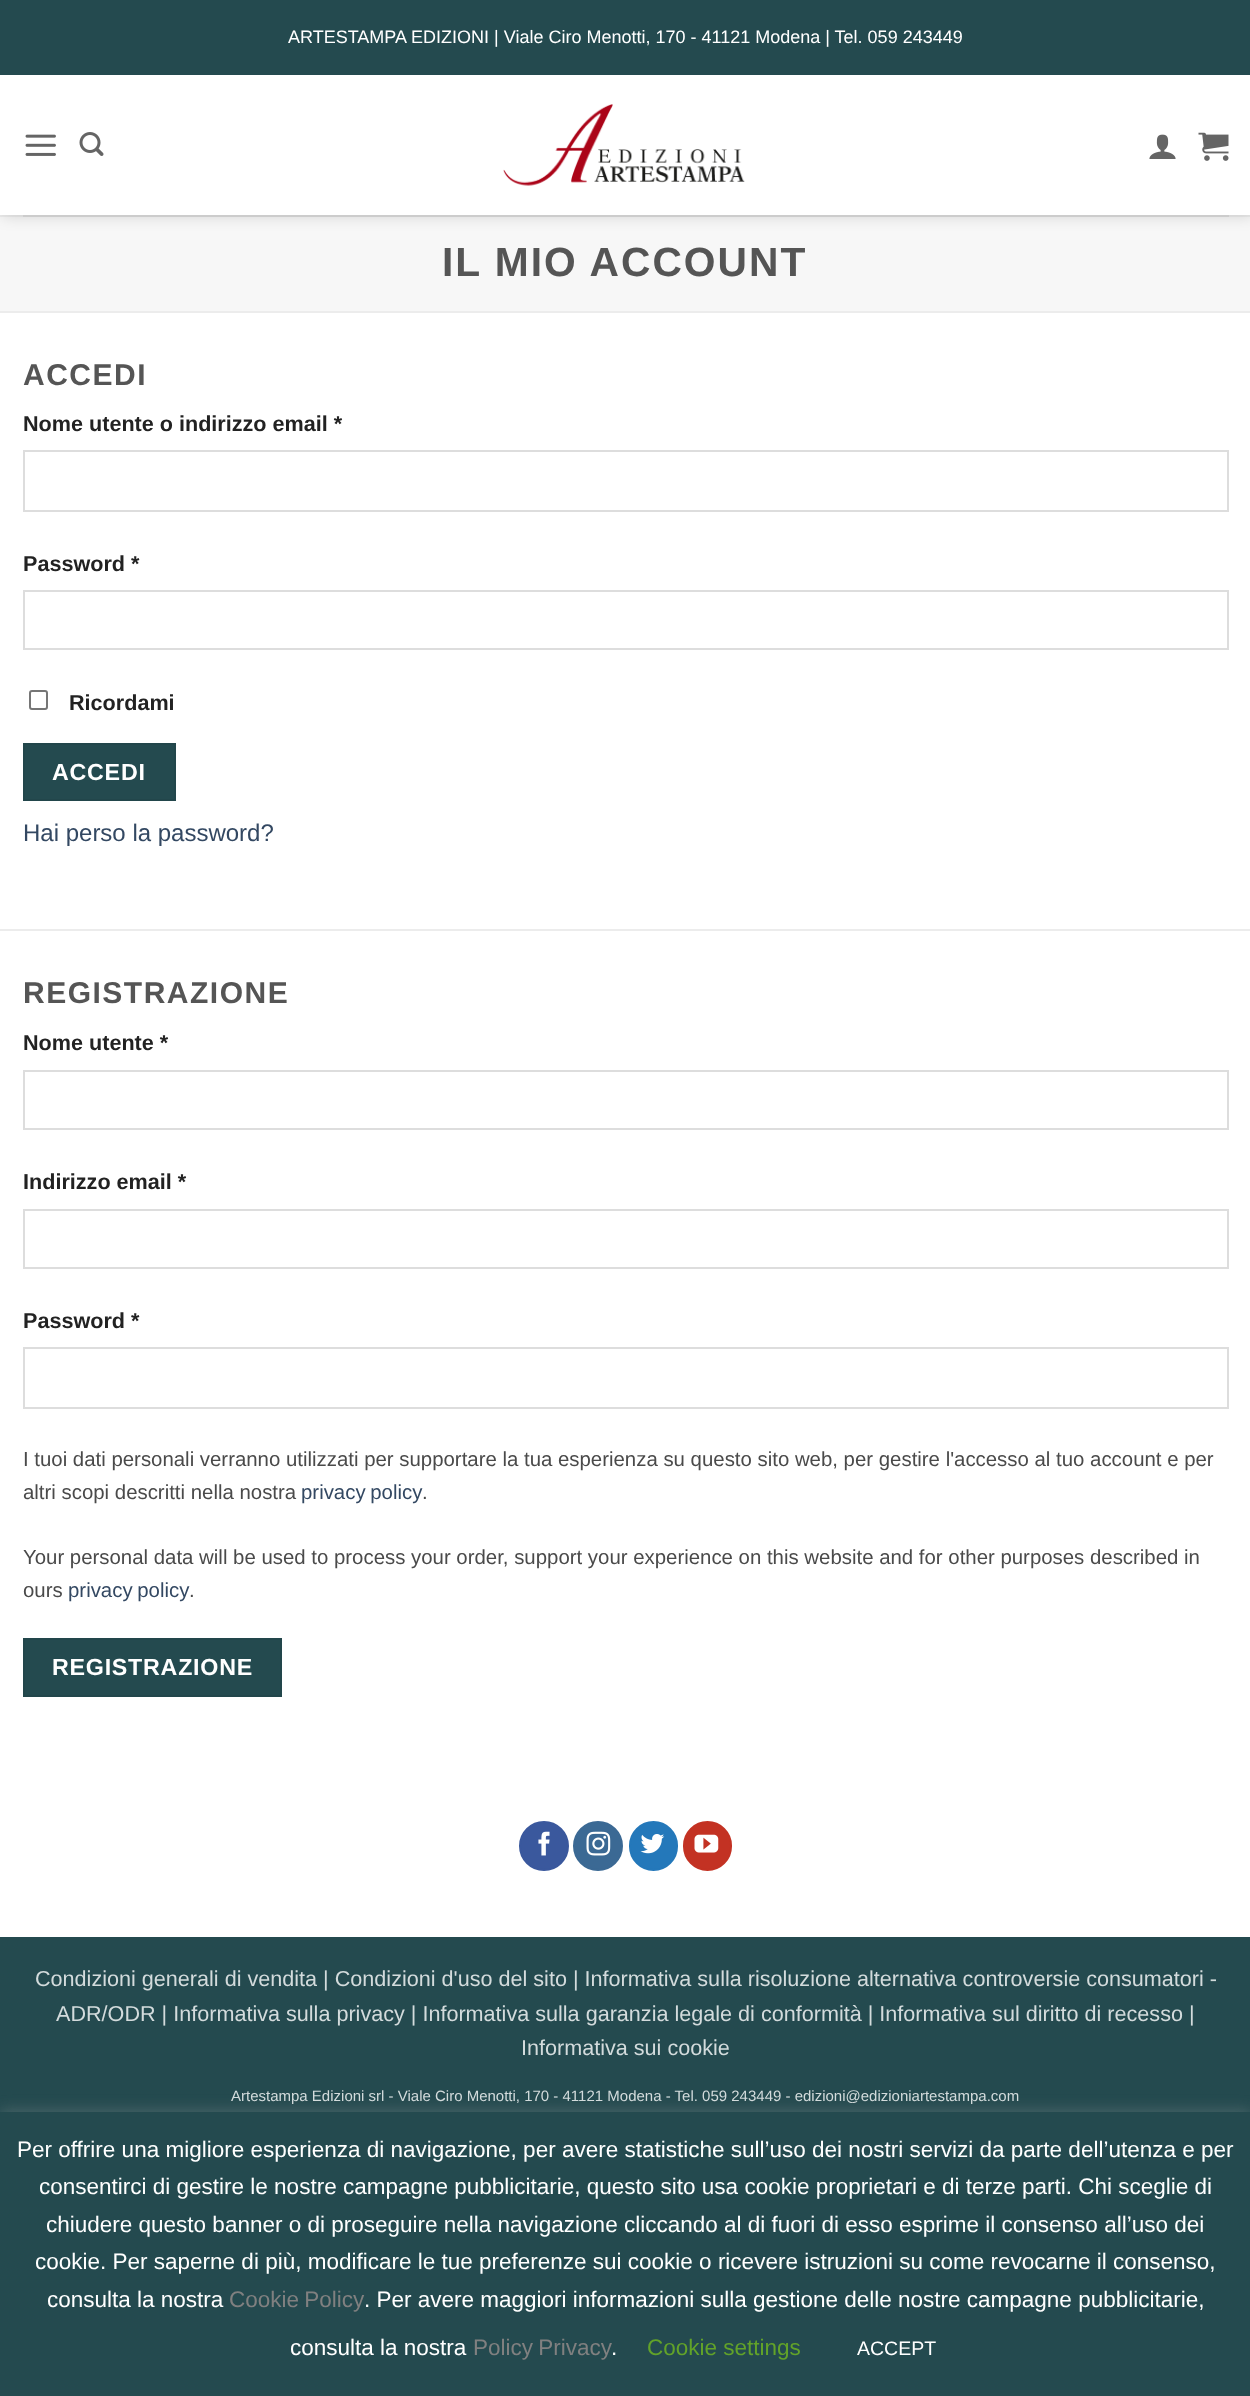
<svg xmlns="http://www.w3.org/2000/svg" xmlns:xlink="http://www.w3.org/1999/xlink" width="1250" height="2396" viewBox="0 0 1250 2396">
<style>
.cls-1{font:18px Liberation Sans;fill:#ffffff}
.cls-2{font:bold 40.75px Liberation Sans;letter-spacing:2px;fill:#555555}
.cls-3{font:bold 30px Liberation Sans;letter-spacing:1.5px;fill:#555555}
.cls-4{font:bold 21.6px Liberation Sans;fill:#222222}
.cls-5{font:bold 23.25px Liberation Sans;letter-spacing:0.75px;fill:#ffffff}
.cls-6{font:24px Liberation Sans;fill:#334862}
.cls-7{font:20.4px Liberation Sans;fill:#4a4a4a}
.cls-8{font:20.4px Liberation Sans;fill:#334862}
.cls-9{font:21.6px Liberation Sans;fill:#d3dbdc}
.cls-10{font:15px Liberation Sans;fill:#d3dbdc}
.cls-11{font:22.5px Liberation Sans;fill:#ffffff}
.cls-12{font:22.5px Liberation Sans;fill:#808080}
.cls-13{font:22.5px Liberation Sans;fill:#62a329}
.cls-14{font:19.5px Liberation Sans;fill:#ffffff}
</style>
<defs>
<clipPath id="clip1"><path d="M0 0H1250V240H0ZM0 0H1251V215H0Z" clip-rule="evenodd"/></clipPath>
</defs>
<rect width="100%" height="100%" fill="#ffffff"/>
<rect fill="#f7f7f7" x="0" y="217" width="1250" height="94"/>
<rect fill="#ececec" x="0" y="215" width="1250" height="2"/>
<g clip-path="url(#clip1)">
<rect fill="#000000" fill-opacity="0.15" filter="blur(7.5px)" x="2" y="2" width="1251" height="214"/>
</g>
<rect fill="#244a4f" x="0" y="0" width="1250" height="75"/>
<image xlink:href="image0.png" x="25" y="134" width="31" height="22"/>
<image xlink:href="image1.png" x="79" y="132" width="25" height="24"/>
<image xlink:href="image2.png" x="503" y="104" width="242" height="82"/>
<image xlink:href="image3.png" x="1149" y="134" width="27" height="25"/>
<image xlink:href="image4.png" x="1198" y="132" width="31" height="29"/>
<rect fill="#cccccc" x="23" y="215" width="1206" height="2"/>
<rect fill="#ffffff" fill-opacity="0.9" x="0" y="214" width="1250" height="1"/>
<rect fill="#ececec" x="0" y="311" width="1250" height="2"/>
<rect fill="#ececec" x="0" y="929" width="1250" height="2"/>
<rect fill="none" stroke="#dddddd" stroke-width="2" x="24" y="451" width="1204" height="60"/>
<rect fill="none" stroke="#dddddd" stroke-width="2" x="24" y="591" width="1204" height="58"/>
<rect fill="none" stroke="#767676" stroke-width="2" x="30" y="691" width="17" height="18" rx="2"/>
<rect fill="#244a4f" stroke="#22464b" stroke-width="2" x="24" y="744" width="151" height="56"/>
<rect fill="none" stroke="#dddddd" stroke-width="2" x="24" y="1071" width="1204" height="58"/>
<rect fill="none" stroke="#dddddd" stroke-width="2" x="24" y="1210" width="1204" height="58"/>
<rect fill="none" stroke="#dddddd" stroke-width="2" x="24" y="1348" width="1204" height="60"/>
<rect fill="#244a4f" stroke="#22464b" stroke-width="2" x="24" y="1639" width="257" height="57"/>
<circle fill="#3a589d" stroke="#3a589d" stroke-width="2" cx="544" cy="1846" r="24"/>
<image xlink:href="image5.png" x="538" y="1831" width="12" height="25"/>
<circle fill="#3b6994" stroke="#3b6994" stroke-width="2" cx="598" cy="1846" r="24"/>
<image xlink:href="image6.png" x="586" y="1831" width="25" height="25"/>
<rect fill="#2478ba" stroke="#2478ba" stroke-width="2" x="630" y="1822" width="47" height="48" rx="23.5"/>
<image xlink:href="image7.png" x="640" y="1834" width="25" height="20"/>
<rect fill="#c33223" stroke="#c33223" stroke-width="2" x="684" y="1822" width="47" height="48" rx="23.5"/>
<image xlink:href="image8.png" x="694" y="1834" width="25" height="19"/>
<rect fill="#244a4f" x="0" y="1937" width="1250" height="175"/>
<rect fill="#acabab" fill-opacity="0.3" filter="blur(7.5px)" x="0" y="2111" width="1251" height="285"/>
<rect fill="#244a4f" x="0" y="2112" width="1250" height="284"/>
<text class="cls-1" x="288" y="43">ARTESTAMPA EDIZIONI | Viale Ciro Menotti, 170 - 41121 Modena | Tel. 059 243449</text>
<text class="cls-2" x="442" y="276">IL MIO ACCOUNT</text>
<text class="cls-3" x="23" y="385">ACCEDI</text>
<text class="cls-4" x="23" y="431">Nome utente o indirizzo email *</text>
<text class="cls-4" x="23" y="571">Password *</text>
<text class="cls-4" x="69" y="710">Ricordami</text>
<text class="cls-5" x="52" y="780">ACCEDI</text>
<text class="cls-6" x="23" y="841">Hai perso la password?</text>
<text class="cls-3" x="23" y="1003">REGISTRAZIONE</text>
<text class="cls-4" x="23" y="1050">Nome utente *</text>
<text class="cls-4" x="23" y="1189">Indirizzo email *</text>
<text class="cls-4" x="23" y="1328">Password *</text>
<text class="cls-7"><tspan x="23" y="1466">I tuoi dati personali verranno utilizzati per supportare la tua esperienza su questo sito web, per gestire l'accesso al tuo account e per</tspan><tspan x="23" y="1499">altri scopi descritti nella nostra</tspan></text>
<text class="cls-8" x="301" y="1499" word-spacing="-1">privacy policy</text>
<text class="cls-7" x="422" y="1499">.</text>
<text class="cls-7"><tspan x="23" y="1564">Your personal data will be used to process your order, support your experience on this website and for other purposes described in</tspan><tspan x="23" y="1597">ours</tspan></text>
<text class="cls-8" x="68" y="1597" word-spacing="-1">privacy policy</text>
<text class="cls-7" x="189" y="1597">.</text>
<text class="cls-5" x="52" y="1675">REGISTRAZIONE</text>
<text class="cls-9" x="35" y="1986">Condizioni generali di vendita | Condizioni d'uso del sito | Informativa sulla risoluzione alternativa controversie consumatori -</text>
<text class="cls-9" x="56" y="2021">ADR/ODR | Informativa sulla privacy | Informativa sulla garanzia legale di conformità | Informativa sul diritto di recesso |</text>
<text class="cls-9" x="521" y="2055">Informativa sui cookie</text>
<text class="cls-10" x="231" y="2101">Artestampa Edizioni srl - Viale Ciro Menotti, 170 - 41121 Modena - Tel. 059 243449 - edizioni@edizioniartestampa.com</text>
<text class="cls-11" x="17" y="2157">Per offrire una migliore esperienza di navigazione, per avere statistiche sull’uso dei nostri servizi da parte dell’utenza e per</text>
<text class="cls-11" x="39" y="2194">consentirci di gestire le nostre campagne pubblicitarie, questo sito usa cookie proprietari e di terze parti. Chi sceglie di</text>
<text class="cls-11" x="46" y="2232">chiudere questo banner o di proseguire nella navigazione cliccando al di fuori di esso esprime il consenso all’uso dei</text>
<text class="cls-11" x="35" y="2269">cookie. Per saperne di più, modificare le tue preferenze sui cookie o ricevere istruzioni su come revocarne il consenso,</text>
<text class="cls-11" x="47" y="2307">consulta la nostra</text>
<text class="cls-12" x="229" y="2307" word-spacing="-1">Cookie Policy</text>
<text class="cls-11" x="364" y="2307">. Per avere maggiori informazioni sulla gestione delle nostre campagne pubblicitarie,</text>
<text class="cls-11" x="290" y="2355">consulta la nostra</text>
<text class="cls-12" x="473" y="2355" word-spacing="-1">Policy Privacy</text>
<text class="cls-11" x="611" y="2355">.</text>
<text class="cls-13" x="647" y="2355">Cookie settings</text>
<text class="cls-14" x="857" y="2355">ACCEPT</text>
</svg>
